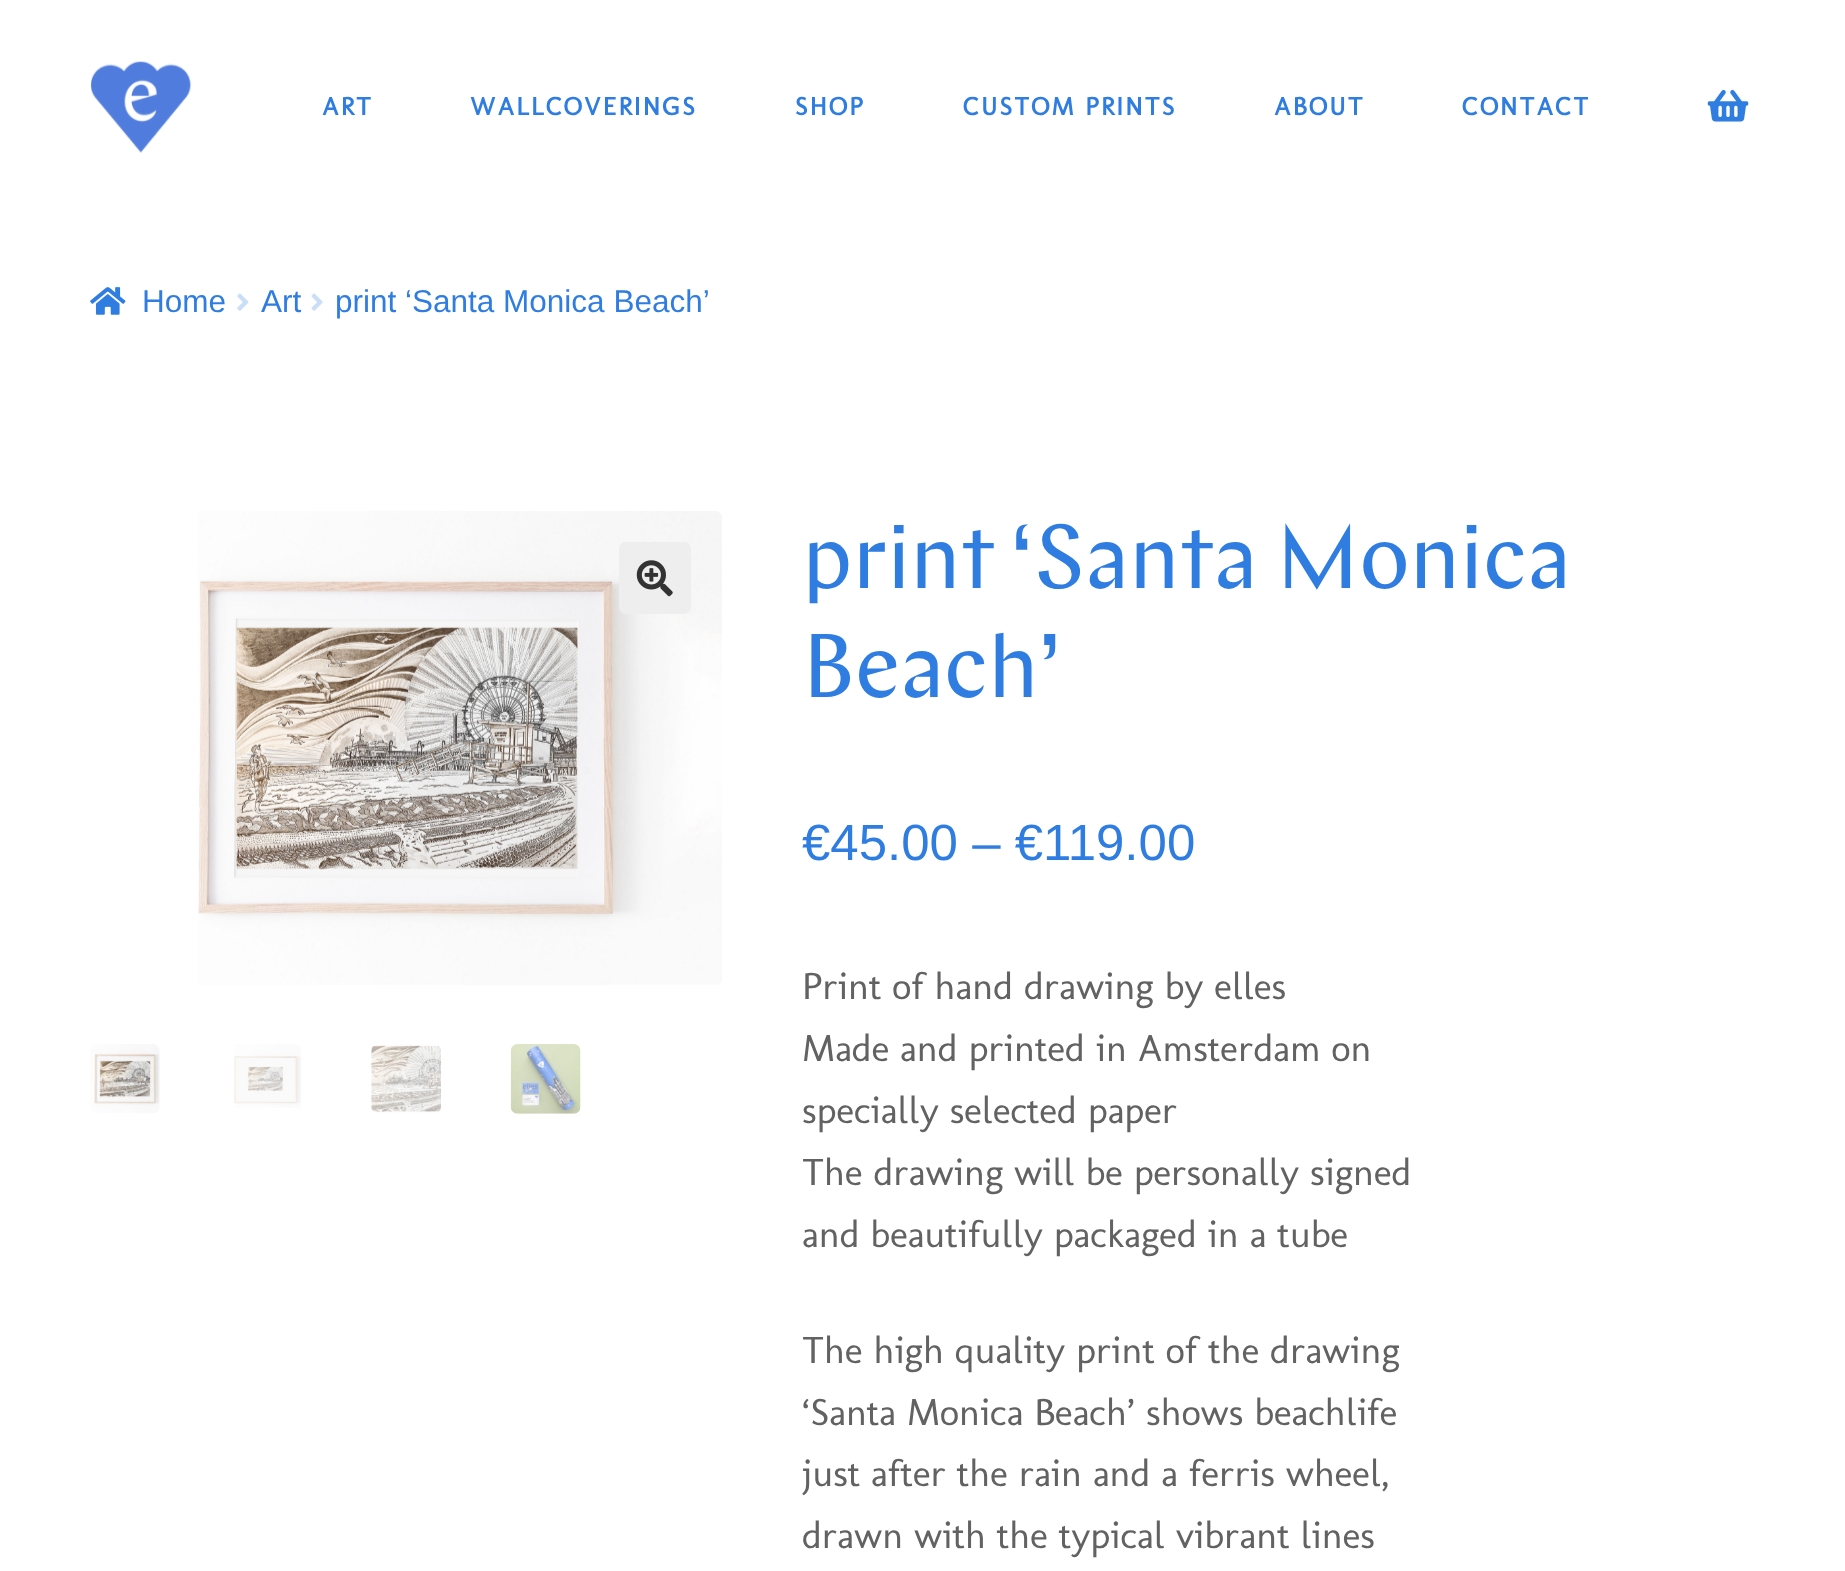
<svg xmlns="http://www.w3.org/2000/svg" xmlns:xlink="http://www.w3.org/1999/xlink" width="1845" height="1571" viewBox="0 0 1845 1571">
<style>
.cls-1{font:bold 25.5px Molengo;letter-spacing:2.25px;fill:#2f7de1}
.cls-2{font:31.5px Liberation Sans;fill:#2f7de1}
.cls-3{font:90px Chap;letter-spacing:-0.25px;fill:#2f7de1}
.cls-4{font:51px Liberation Sans;fill:#2f7de1}
.cls-5{font:38.25px Molengo;fill:#626262}
</style>
<rect width="100%" height="100%" fill="#ffffff"/>
<image xlink:href="image0.png" x="90" y="61" width="101" height="92"/>
<image xlink:href="image1.png" x="1707" y="90" width="42" height="32"/>
<image xlink:href="image2.png" x="90" y="287" width="36" height="28"/>
<image xlink:href="image3.png" x="237" y="293" width="12" height="18"/>
<image xlink:href="image4.png" x="311" y="293" width="12" height="18"/>
<image xlink:href="image5.png" x="198" y="511" width="524" height="474"/>
<rect fill="#eeeeee" x="619" y="542" width="72" height="72" rx="7"/>
<image xlink:href="image6.png" x="636" y="560" width="37" height="37"/>
<image xlink:href="image7.png" x="90" y="1044" width="70" height="69"/>
<image xlink:href="image8.png" x="233" y="1044" width="68" height="64"/>
<image xlink:href="image9.png" x="371" y="1044" width="70" height="69"/>
<image xlink:href="image10.png" x="510" y="1044" width="71" height="70"/>
<text class="cls-1" x="322" y="115">ART</text>
<text class="cls-1" x="470" y="115">WALLCOVERINGS</text>
<text class="cls-1" x="795" y="115">SHOP</text>
<text class="cls-1" x="963" y="115">CUSTOM PRINTS</text>
<text class="cls-1" x="1274" y="115">ABOUT</text>
<text class="cls-1" x="1462" y="115">CONTACT</text>
<text class="cls-2" x="142" y="312">Home</text>
<text class="cls-2" x="261" y="312">Art</text>
<text class="cls-2" x="335" y="312">print ‘Santa Monica Beach’</text>
<text class="cls-3"><tspan x="802" y="588">print ‘Santa Monica</tspan><tspan x="802" y="697">Beach’</tspan></text>
<text class="cls-4" x="802" y="860">€45.00 – €119.00</text>
<text class="cls-5"><tspan x="802" y="999">Print of hand drawing by elles</tspan><tspan x="802" y="1061">Made and printed in Amsterdam on</tspan><tspan x="802" y="1123">specially selected paper</tspan><tspan x="802" y="1185">The drawing will be personally signed</tspan><tspan x="802" y="1247">and beautifully packaged in a tube</tspan></text>
<text class="cls-5"><tspan x="802" y="1363">The high quality print of the drawing</tspan><tspan x="802" y="1425">‘Santa Monica Beach’ shows beachlife</tspan><tspan x="802" y="1486">just after the rain and a ferris wheel,</tspan><tspan x="802" y="1548">drawn with the typical vibrant lines</tspan></text>
</svg>
